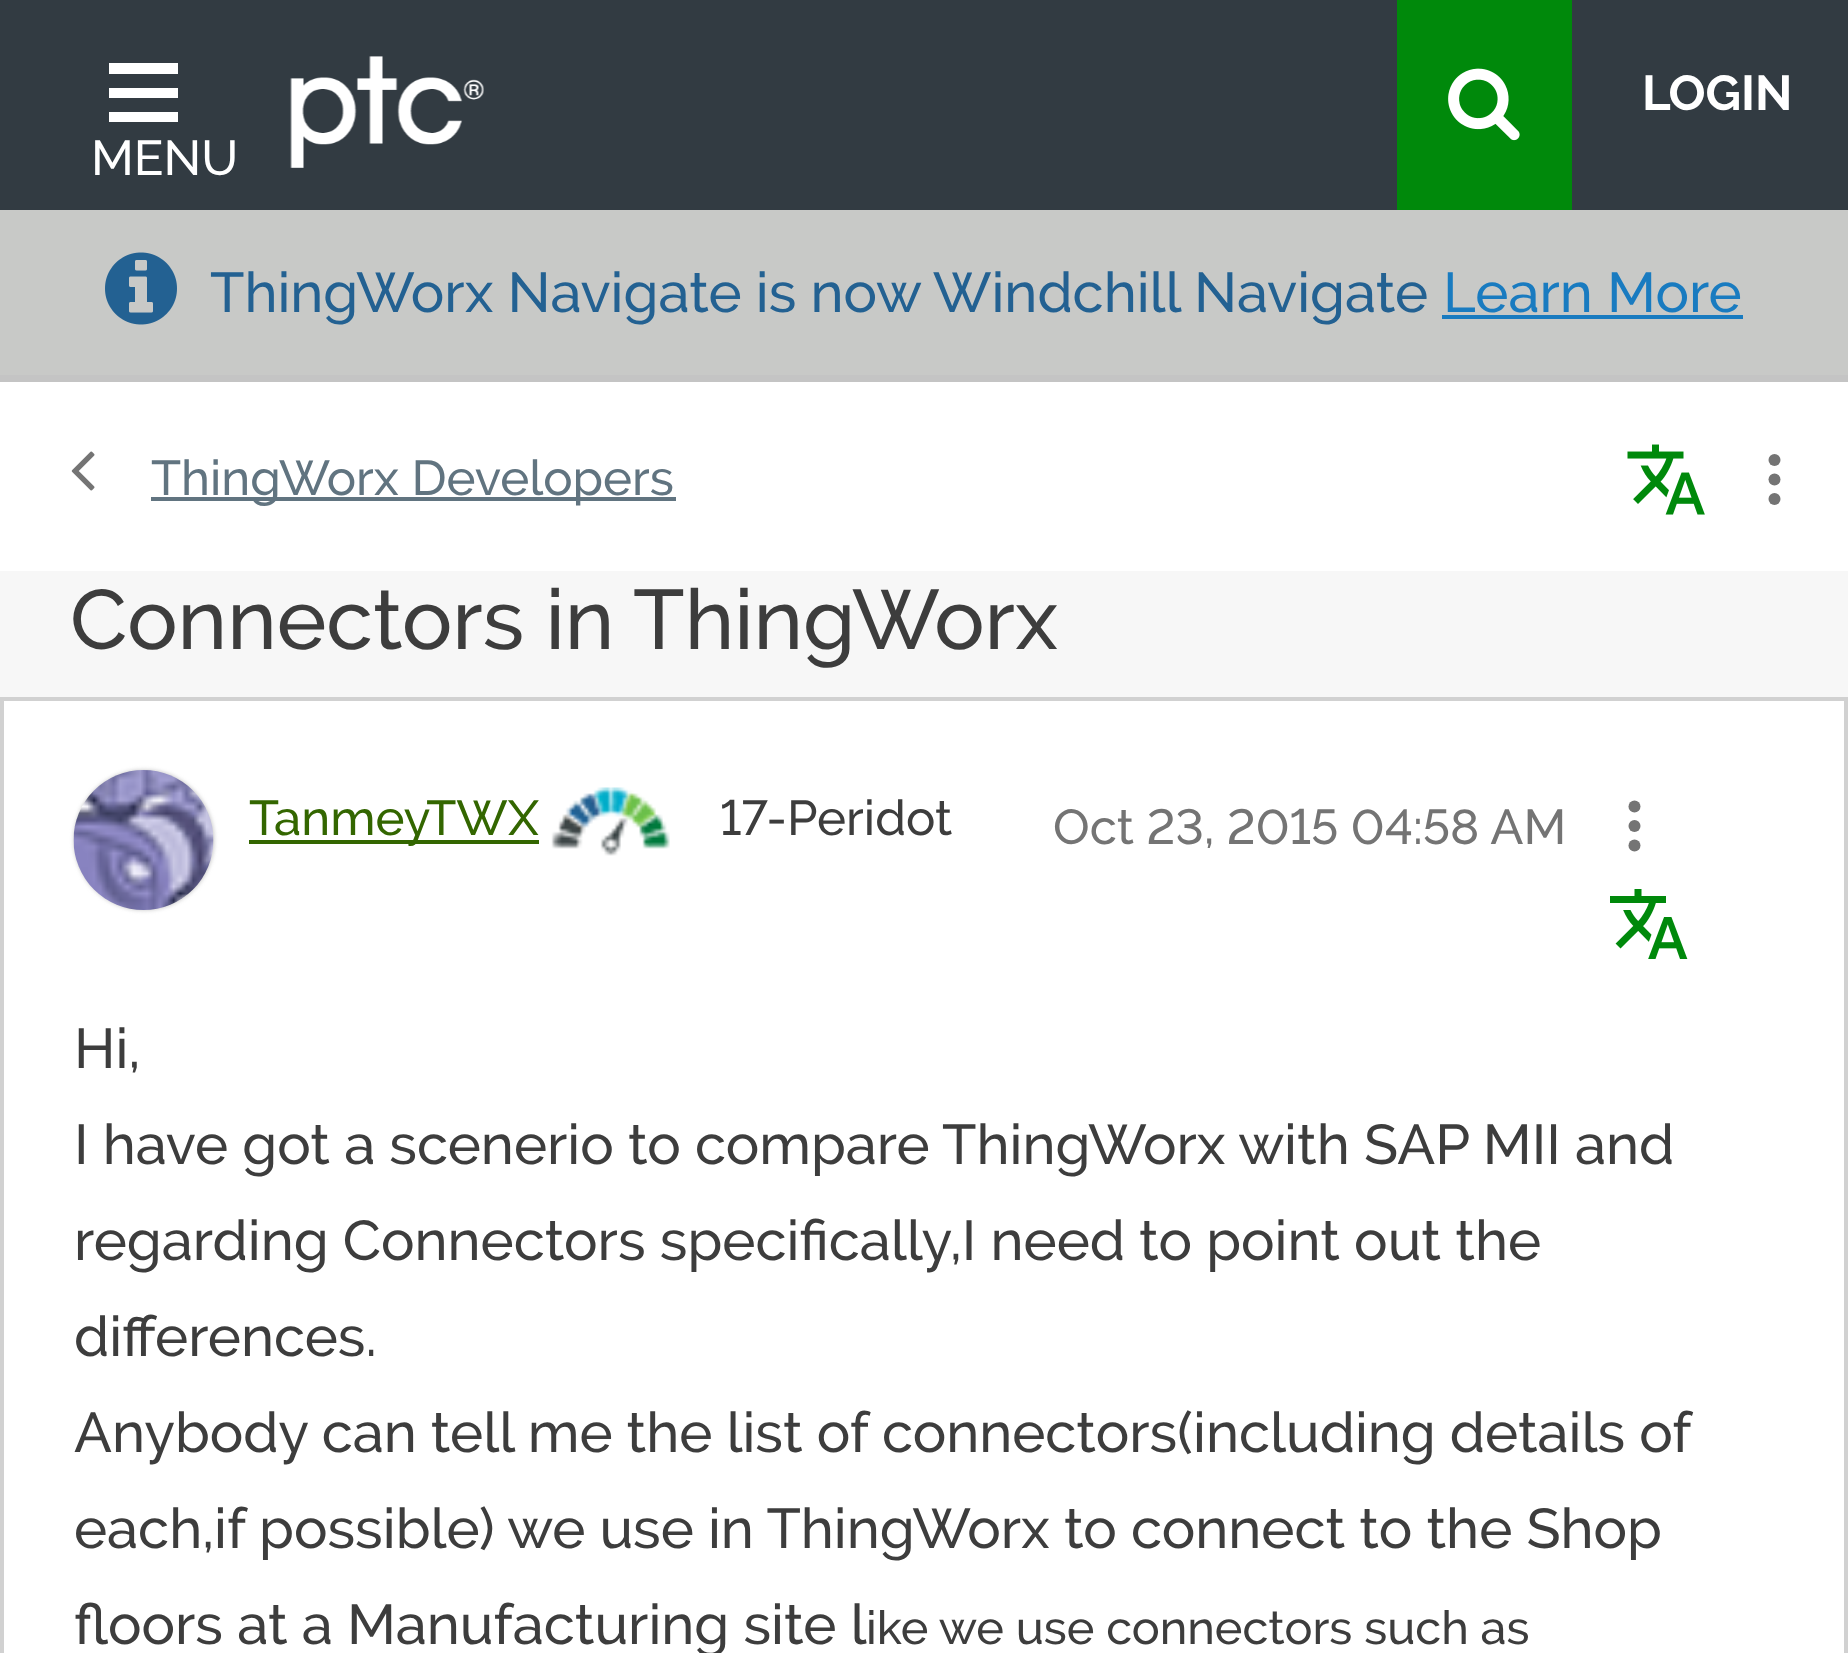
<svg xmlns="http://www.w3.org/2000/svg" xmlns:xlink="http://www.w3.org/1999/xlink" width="1848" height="1653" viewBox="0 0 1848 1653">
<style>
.cls-1{font:bold 49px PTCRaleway;fill:#ffffff}
.cls-2{font:500 49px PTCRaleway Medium;fill:#ffffff}
.cls-3{font:500 56px PTCRaleway Medium;fill:#236192}
.cls-4{font:500 56px PTCRaleway Medium;fill:#197bc0}
.cls-5{font:500 49px PTCRaleway Medium;fill:#617480}
.cls-6{font:500 84px PTCRaleway Medium;fill:#3d3d3d}
.cls-7{font:500 49px PTCRaleway Medium;fill:#336600}
.cls-8{font:500 49px PTCRaleway Medium;fill:#3d3d3d}
.cls-9{font:500 49px PTCRaleway Medium;fill:#747474}
.cls-10{font:500 56px PTCRaleway Medium;fill:#3d3d3d}
.cls-11{font:500 46.7px PTCRaleway Medium;fill:#3d3d3d}
</style>
<defs>
<clipPath id="clip1"><rect x="109" y="56" width="70" height="70"/></clipPath>
</defs>
<rect width="100%" height="100%" fill="#f7f7f7"/>
<rect fill="#323b42" x="0" y="0" width="1848" height="210"/>
<rect fill="#00890b" x="1397" y="0" width="175" height="210"/>
<image xlink:href="image0.png" x="1448" y="68" width="72" height="73"/>
<g clip-path="url(#clip1)">
<path fill="#ffffff" fill-rule="evenodd" d="M108 63H178V74H108ZM108 88H178V98H108ZM108 112H178V122H108Z"/>
</g>
<image xlink:href="image1.png" x="290" y="56" width="194" height="112"/>
<rect fill="#c8c9c7" x="0" y="210" width="1848" height="165"/>
<image xlink:href="image2.png" x="105" y="252" width="72" height="73"/>
<rect fill="#197bc0" x="1442" y="315" width="301" height="4"/>
<rect fill="#ffffff" x="0" y="382" width="1848" height="189"/>
<rect fill="#c4c4c4" x="0" y="375" width="1848" height="7"/>
<image xlink:href="image3.png" x="71" y="451" width="24" height="40"/>
<rect fill="#617480" x="151" y="497" width="525" height="4"/>
<image xlink:href="image4.png" x="1627" y="444" width="78" height="71"/>
<circle fill="#747474" cx="1774.5" cy="460" r="6"/>
<circle fill="#747474" cx="1774.5" cy="479.5" r="6"/>
<circle fill="#747474" cx="1774.5" cy="499" r="6"/>
<rect fill="#ffffff" stroke="#d1d1d1" stroke-width="4" x="2" y="699" width="1844" height="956"/>
<rect fill="#c4c4c4" filter="blur(2px)" x="74" y="770" width="140" height="140" rx="70"/>
<image xlink:href="image5.png" x="73" y="770" width="141" height="140"/>
<rect fill="#336600" x="249" y="840" width="290" height="4"/>
<image xlink:href="image6.png" x="551" y="787" width="119" height="69"/>
<circle fill="#747474" cx="1634.5" cy="806.5" r="6"/>
<circle fill="#747474" cx="1634.5" cy="826" r="6"/>
<circle fill="#747474" cx="1634.5" cy="845.5" r="6"/>
<image xlink:href="image7.png" x="1610" y="889" width="78" height="70"/>
<text class="cls-1" x="1642" y="110">LOGIN</text>
<text class="cls-2" x="91" y="175">MENU</text>
<text class="cls-3" x="210" y="312">ThingWorx Navigate is now Windchill Navigate</text>
<text class="cls-4" x="1443" y="312">Learn More</text>
<text class="cls-5" x="151" y="495">ThingWorx Developers</text>
<text class="cls-6" x="70" y="649">Connectors in ThingWorx</text>
<text class="cls-7" x="249" y="835">TanmeyTWX</text>
<text class="cls-8" x="720" y="835">17-Peridot</text>
<text class="cls-9" x="1053" y="844">Oct 23, 2015 04:58 AM</text>
<text class="cls-10"><tspan x="74" y="1068">Hi,</tspan><tspan x="74" y="1164">I have got a scenerio to compare ThingWorx with SAP MII and</tspan><tspan x="74" y="1260">regarding Connectors specifically,I need to point out the</tspan><tspan x="74" y="1356">differences.</tspan><tspan x="74" y="1452" word-spacing="-0.1">Anybody can tell me the list of connectors(including details of</tspan><tspan x="74" y="1548">each,if possible) we use in ThingWorx to connect to the Shop</tspan><tspan x="74" y="1644">floors at a Manufacturing site l</tspan></text>
<text class="cls-11" x="866" y="1644">ike we use connectors such as</text>
</svg>
